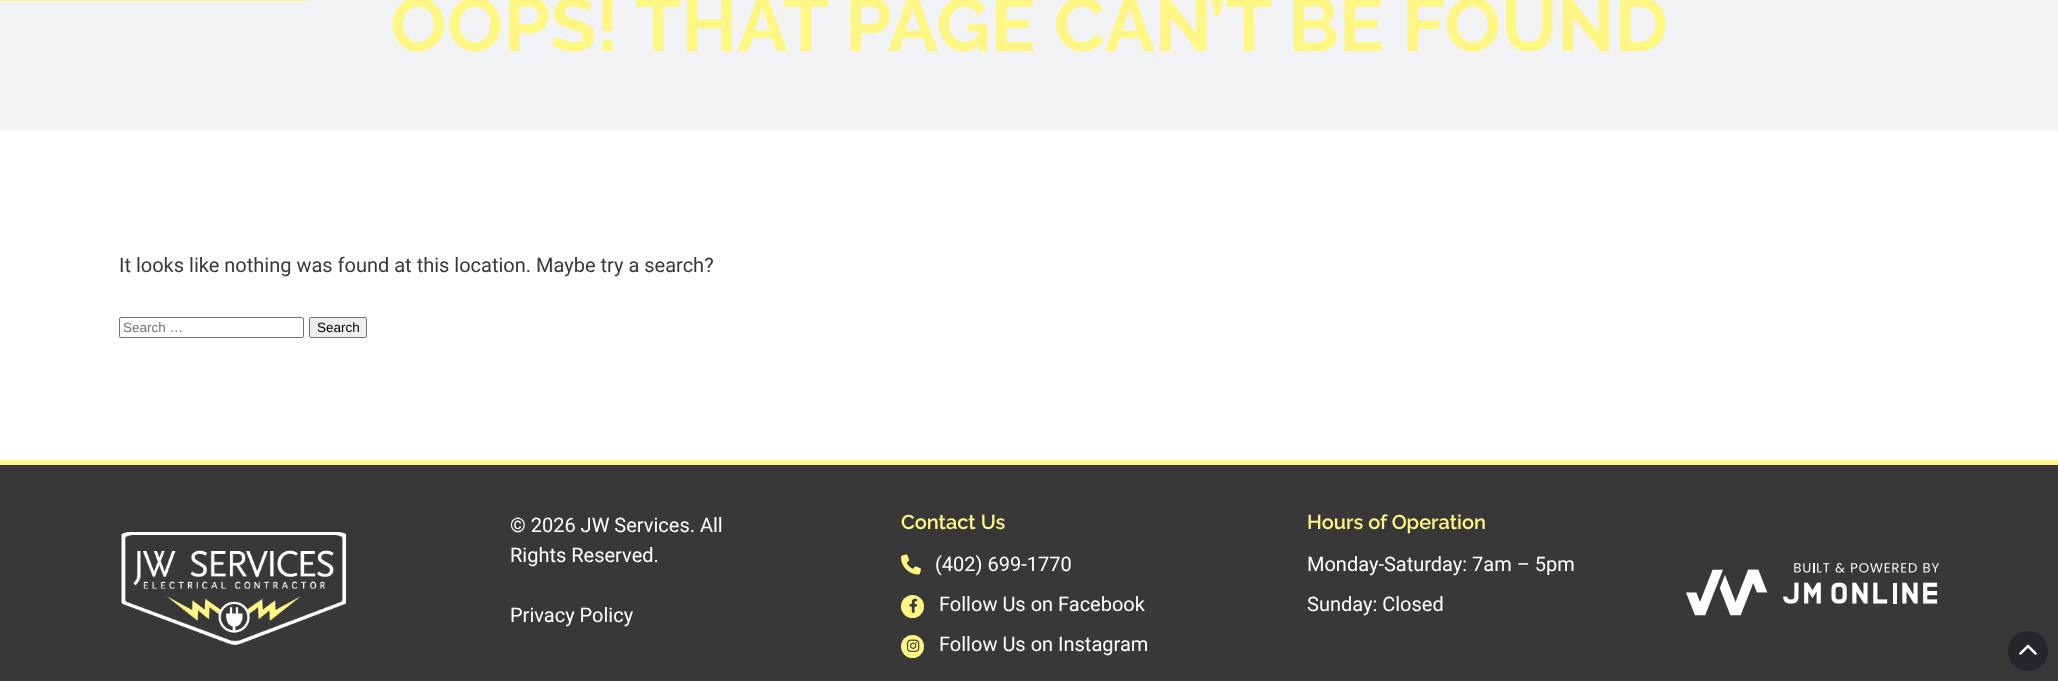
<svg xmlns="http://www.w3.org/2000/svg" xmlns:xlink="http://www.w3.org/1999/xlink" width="2058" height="681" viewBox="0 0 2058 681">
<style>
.cls-1{font:bold 75px Raleway;fill:#fff684}
.cls-2{font:20px Roboto;fill:#393838}
.cls-3{font:13.5px Liberation Sans;fill:#757575}
.cls-4{font:13.5px Liberation Sans;fill:#000000}
.cls-5{font:20px Roboto;fill:#ffffff}
.cls-6{font:600 20px Raleway;fill:#fff684}
</style>
<rect width="100%" height="100%" fill="#ffffff"/>
<rect fill="#f1f3f4" x="0" y="0" width="2058" height="130"/>
<rect fill="#fff684" x="0" y="0" width="28" height="1"/>
<path fill="#fff684" d="M28-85V1H308L533-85Z"/>
<rect fill="none" stroke="#767676" x="119.5" y="317.5" width="184" height="20" rx="1.5"/>
<rect fill="#efefef" stroke="#767676" x="309.5" y="317.5" width="57" height="20" rx="1.5"/>
<rect fill="#393838" x="0" y="465" width="2058" height="216"/>
<rect fill="#fff684" x="0" y="460" width="2058" height="5"/>
<image xlink:href="image0.png" x="121" y="532" width="226" height="113"/>
<image xlink:href="image1.png" x="901" y="554" width="20" height="21"/>
<circle fill="#fff684" cx="912.5" cy="606.5" r="11.5"/>
<image xlink:href="image2.png" x="909" y="598" width="9" height="15"/>
<circle fill="#fff684" cx="912.5" cy="646.5" r="11.5"/>
<image xlink:href="image3.png" x="907" y="639" width="13" height="13"/>
<image xlink:href="image4.png" x="1686" y="563" width="253" height="53"/>
<circle fill="#25272c" cx="2028" cy="651" r="20"/>
<image xlink:href="image5.png" x="2019" y="644" width="18" height="11"/>
<text class="cls-1" x="390" y="51">OOPS! THAT PAGE CAN’T BE FOUND</text>
<text class="cls-2" x="119" y="272">It looks like nothing was found at this location. Maybe try a search?</text>
<text class="cls-3" x="123" y="332">Search …</text>
<text class="cls-4" x="317" y="332">Search</text>
<text class="cls-5"><tspan x="510" y="532">© 2026 JW Services. All</tspan><tspan x="510" y="562">Rights Reserved.</tspan></text>
<text class="cls-5" x="510" y="622">Privacy Policy</text>
<text class="cls-6" x="901" y="529">Contact Us</text>
<text class="cls-5" x="935" y="571">(402) 699-1770</text>
<text class="cls-5" x="939" y="611">Follow Us on Facebook</text>
<text class="cls-5" x="939" y="651">Follow Us on Instagram</text>
<text class="cls-6" x="1307" y="529">Hours of Operation</text>
<text class="cls-5" x="1307" y="571">Monday-Saturday: 7am – 5pm</text>
<text class="cls-5" x="1307" y="611">Sunday: Closed</text>
</svg>
